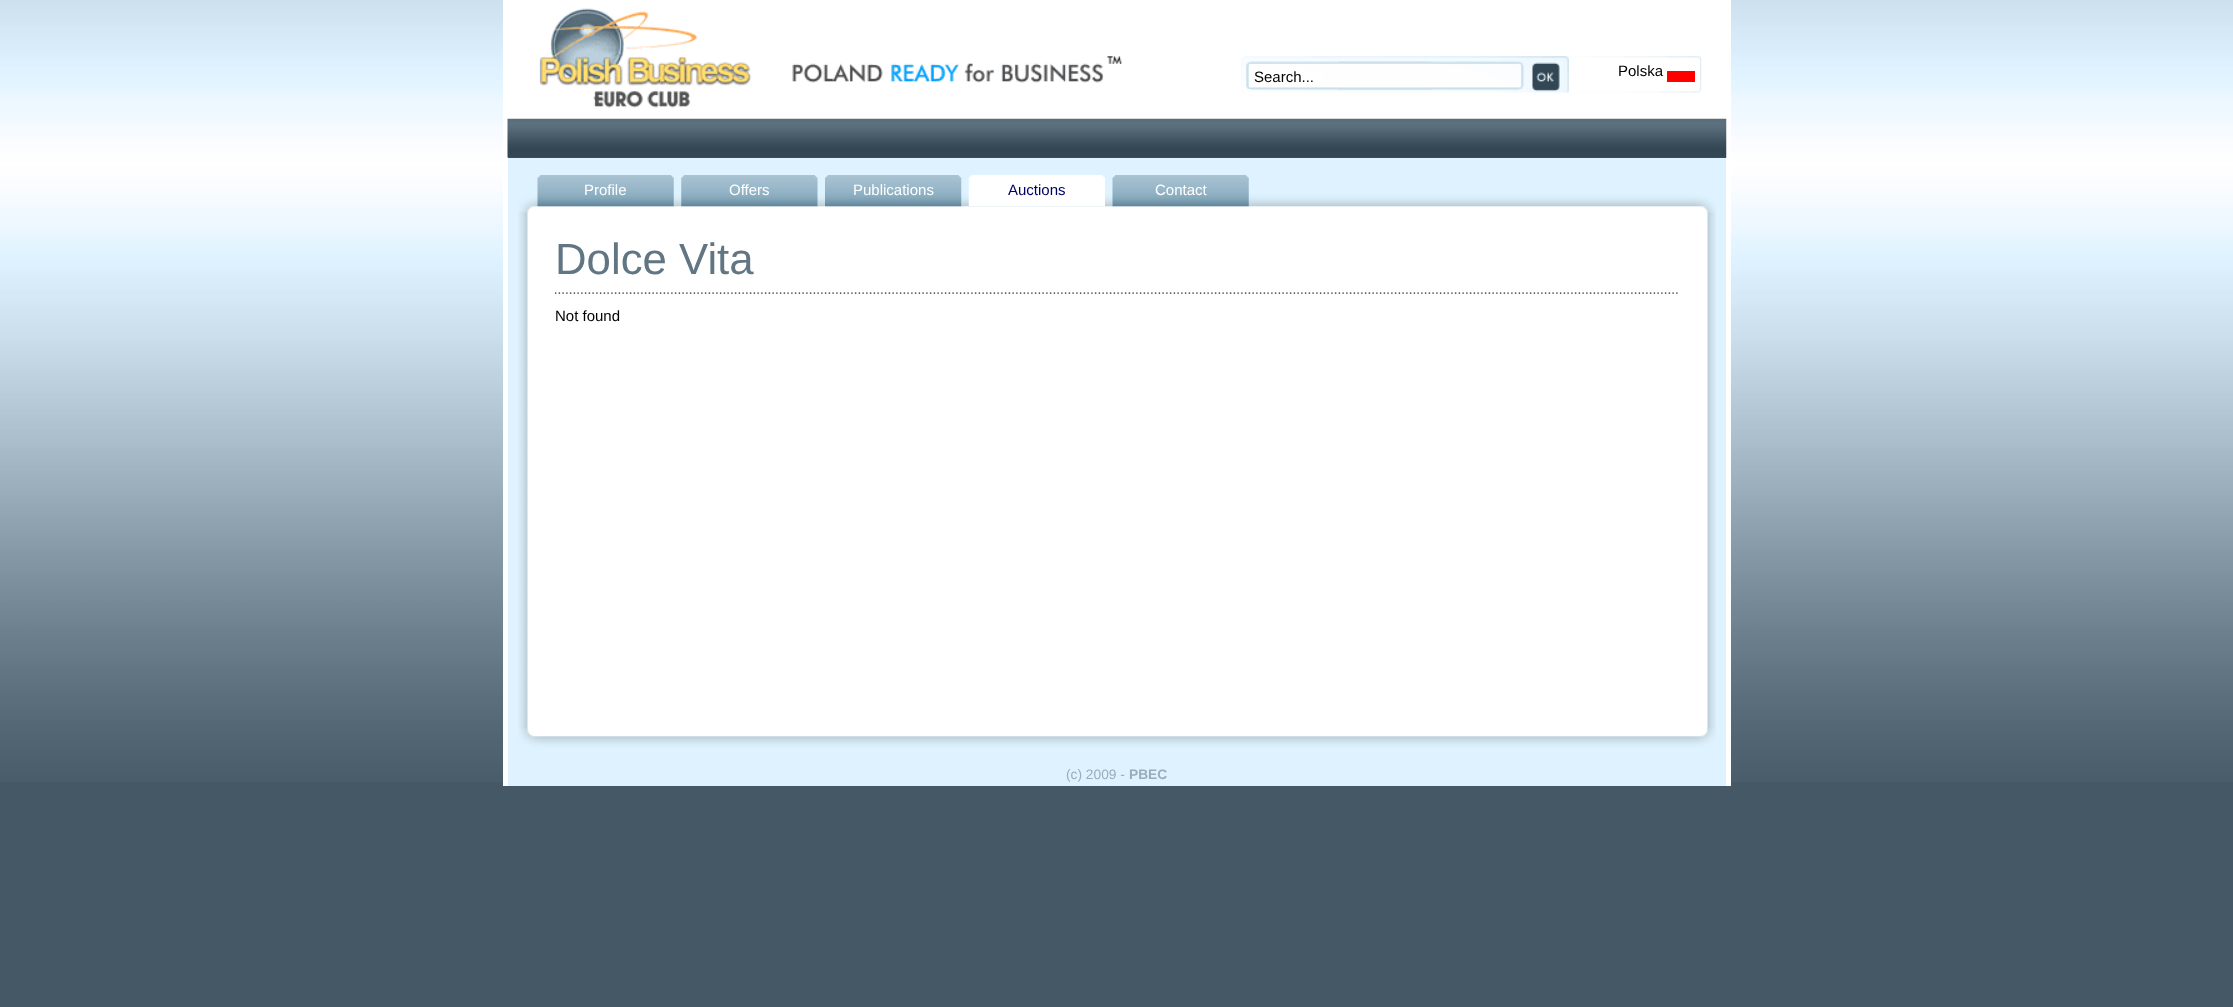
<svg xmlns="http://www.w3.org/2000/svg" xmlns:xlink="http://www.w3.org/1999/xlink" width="2233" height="1007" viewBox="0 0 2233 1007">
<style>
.cls-1{font:15px Liberation Sans;fill:#000000}
.cls-2{font:15px Liberation Sans;fill:#ffffff}
.cls-3{font:15px Liberation Sans;fill:#000066}
.cls-4{font:43.75px Liberation Sans;fill:#617682}
.cls-5{font:13.75px Liberation Sans;fill:#98adb9}
.cls-6{font:bold 13.75px Liberation Sans;fill:#98adb9}
</style>
<rect width="100%" height="100%" fill="#445965"/>
<image xlink:href="image0.png" x="0" y="0" width="2233" height="782"/>
<rect fill="#ffffff" x="503" y="0" width="1228" height="786"/>
<image xlink:href="image1.png" x="539" y="8" width="213" height="100"/>
<image xlink:href="image2.png" x="792" y="55" width="330" height="28"/>
<image xlink:href="image3.png" x="1241" y="56" width="461" height="37"/>
<image xlink:href="image4.png" x="1532" y="62" width="28" height="30"/>
<rect fill="#ff0000" x="1667" y="71" width="28" height="11"/>
<rect fill="#445965" x="508" y="157" width="1218" height="1"/>
<image xlink:href="image5.png" x="507" y="118" width="1220" height="40"/>
<rect fill="#def3ff" x="508" y="158" width="1218" height="628"/>
<image xlink:href="image6.png" x="518" y="212" width="1198" height="516"/>
<image xlink:href="image7.png" x="518" y="165" width="1198" height="48"/>
<image xlink:href="image8.png" x="537" y="175" width="137" height="32"/>
<image xlink:href="image9.png" x="681" y="175" width="137" height="32"/>
<image xlink:href="image10.png" x="825" y="175" width="137" height="32"/>
<image xlink:href="image11.png" x="968" y="175" width="137" height="32"/>
<image xlink:href="image12.png" x="1112" y="175" width="137" height="32"/>
<image xlink:href="image13.png" x="518" y="728" width="1198" height="22"/>
<image xlink:href="image14.png" x="555" y="292" width="1123" height="2"/>
<text class="cls-1" x="1254" y="82">Search...</text>
<text class="cls-1" x="1618" y="76">Polska</text>
<text class="cls-2" x="584" y="195">Profile</text>
<text class="cls-2" x="729" y="195">Offers</text>
<text class="cls-2" x="853" y="195">Publications</text>
<text class="cls-3" x="1008" y="195">Auctions</text>
<text class="cls-2" x="1155" y="195">Contact</text>
<text class="cls-4" x="555" y="274">Dolce Vita</text>
<text class="cls-1" x="555" y="321">Not found</text>
<text class="cls-5" x="1066" y="779">(c) 2009 -</text>
<text class="cls-6" x="1129" y="779">PBEC</text>
</svg>
